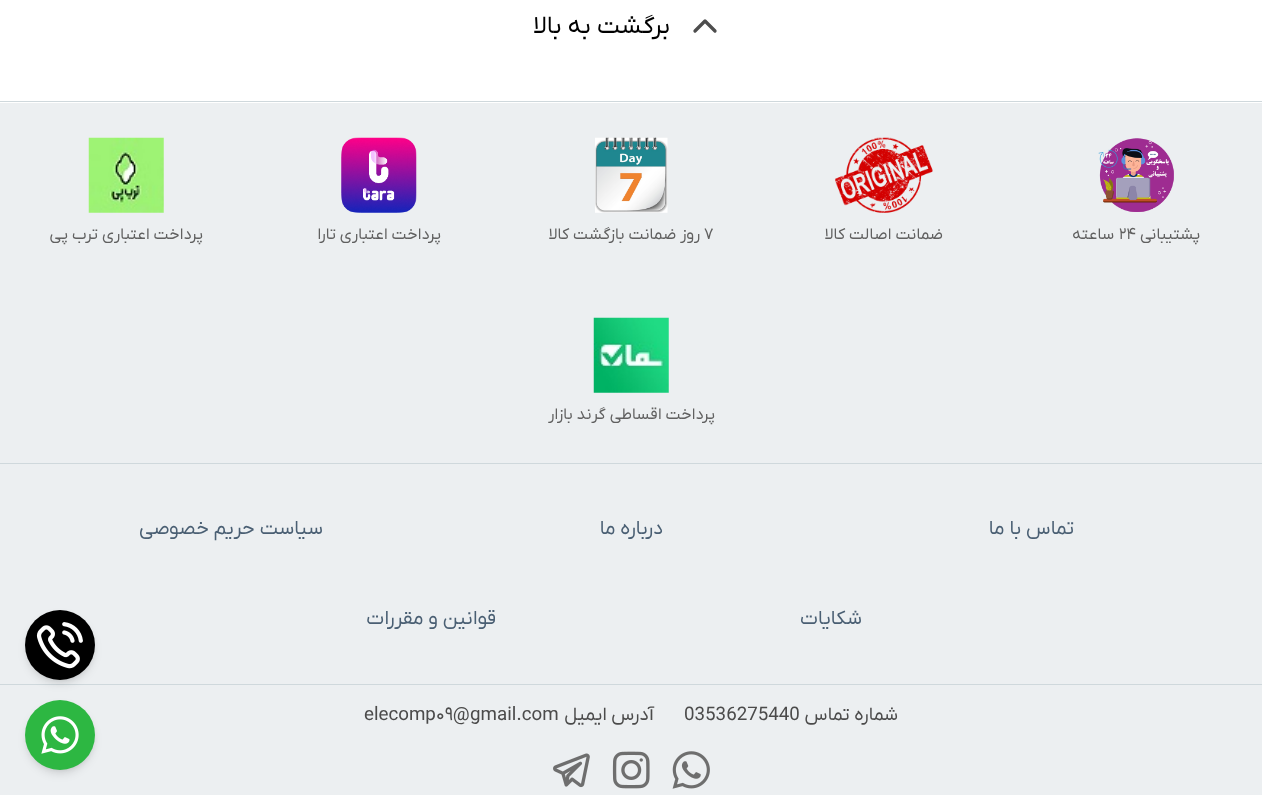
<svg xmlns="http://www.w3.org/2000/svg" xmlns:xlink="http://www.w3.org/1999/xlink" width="1262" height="795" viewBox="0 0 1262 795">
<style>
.cls-1{font:25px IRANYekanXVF;direction:rtl;fill:#000000}
.cls-2{font:16.25px IRANYekanXVF;direction:rtl;fill:#606060}
.cls-3{font:16.25px IRANYekanXVF;fill:#606060}
.cls-4{font:20px IRANYekanXVF;direction:rtl;fill:#4a5f73}
.cls-5{font:18.75px IRANYekanXVF;direction:rtl;fill:#4b4b4b}
.cls-6{font:18.75px IRANYekanXVF;fill:#4b4b4b}
.cls-7{font:18.75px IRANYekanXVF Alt;fill:#4b4b4b}
</style>
<rect width="100%" height="100%" fill="#ffffff"/>
<path fill="none" stroke="#4d4d4d" stroke-width="3.3" stroke-linecap="round" stroke-linejoin="round" d="M715 31L705 21L695 31"/>
<rect fill="#eceff1" x="0" y="103" width="1262" height="692"/>
<rect fill="#cfd8dc" x="0" y="101" width="1262" height="1"/>
<image xlink:href="image0.png" x="1098" y="138" width="76" height="74"/>
<image xlink:href="image1.png" x="835" y="137" width="98" height="76"/>
<image xlink:href="image2.png" x="595" y="137" width="73" height="76"/>
<image xlink:href="image3.png" x="341" y="137" width="76" height="76"/>
<image xlink:href="image4.png" x="88" y="137" width="76" height="76"/>
<image xlink:href="image5.png" x="593" y="317" width="76" height="76"/>
<rect fill="#cfd8dc" x="0" y="463" width="1262" height="1"/>
<rect fill="#cfd8dc" x="0" y="684" width="1262" height="1"/>
<image xlink:href="image6.png" x="672" y="751" width="38" height="38"/>
<image xlink:href="image7.png" x="612" y="751" width="38" height="38"/>
<image xlink:href="image8.png" x="553" y="753" width="37" height="35"/>
<rect fill="#000000" fill-opacity="0.1" filter="blur(2.5px)" x="28" y="615" width="65" height="65" rx="32.5"/>
<rect fill="#000000" fill-opacity="0.1" filter="blur(4px)" x="26" y="616" width="68" height="68" rx="34"/>
<circle fill="#000000" cx="60" cy="645" r="35"/>
<image xlink:href="image9.png" x="36" y="622" width="47" height="47"/>
<rect fill="#000000" fill-opacity="0.1" filter="blur(2.5px)" x="28" y="705" width="65" height="65" rx="32.5"/>
<rect fill="#000000" fill-opacity="0.1" filter="blur(4px)" x="26" y="706" width="68" height="68" rx="34"/>
<circle fill="#2db742" cx="60" cy="735" r="35"/>
<image xlink:href="image10.png" x="41" y="716" width="38" height="38"/>
<text class="cls-1" x="670" y="33">برگشت به بالا</text>
<text class="cls-2" x="1200" y="239">پشتیبانی</text>
<text class="cls-3" x="1119" y="239">۲۴</text>
<text class="cls-2" x="1114" y="239">ساعته</text>
<text class="cls-2" x="943" y="239">ضمانت اصالت کالا</text>
<text class="cls-3" x="704" y="239">۷</text>
<text class="cls-2" x="700" y="239">روز ضمانت بازگشت کالا</text>
<text class="cls-2" x="441" y="239">پرداخت اعتباری تارا</text>
<text class="cls-2" x="203" y="239">پرداخت اعتباری ترب پی</text>
<text class="cls-2" x="715" y="419">پرداخت اقساطی گرند بازار</text>
<text class="cls-4" x="1074" y="534">تماس با ما</text>
<text class="cls-4" x="663" y="534">درباره ما</text>
<text class="cls-4" x="323" y="534">سیاست حریم خصوصی</text>
<text class="cls-4" x="862" y="624">شکایات</text>
<text class="cls-4" x="496" y="624">قوانین و مقررات</text>
<text class="cls-5" x="898" y="720">شماره تماس</text>
<text class="cls-6" x="684" y="720">03536275440</text>
<text class="cls-5" x="654" y="720">آدرس ایمیل</text>
<text class="cls-7" x="364" y="720">elecomp09@gmail.com</text>
</svg>
